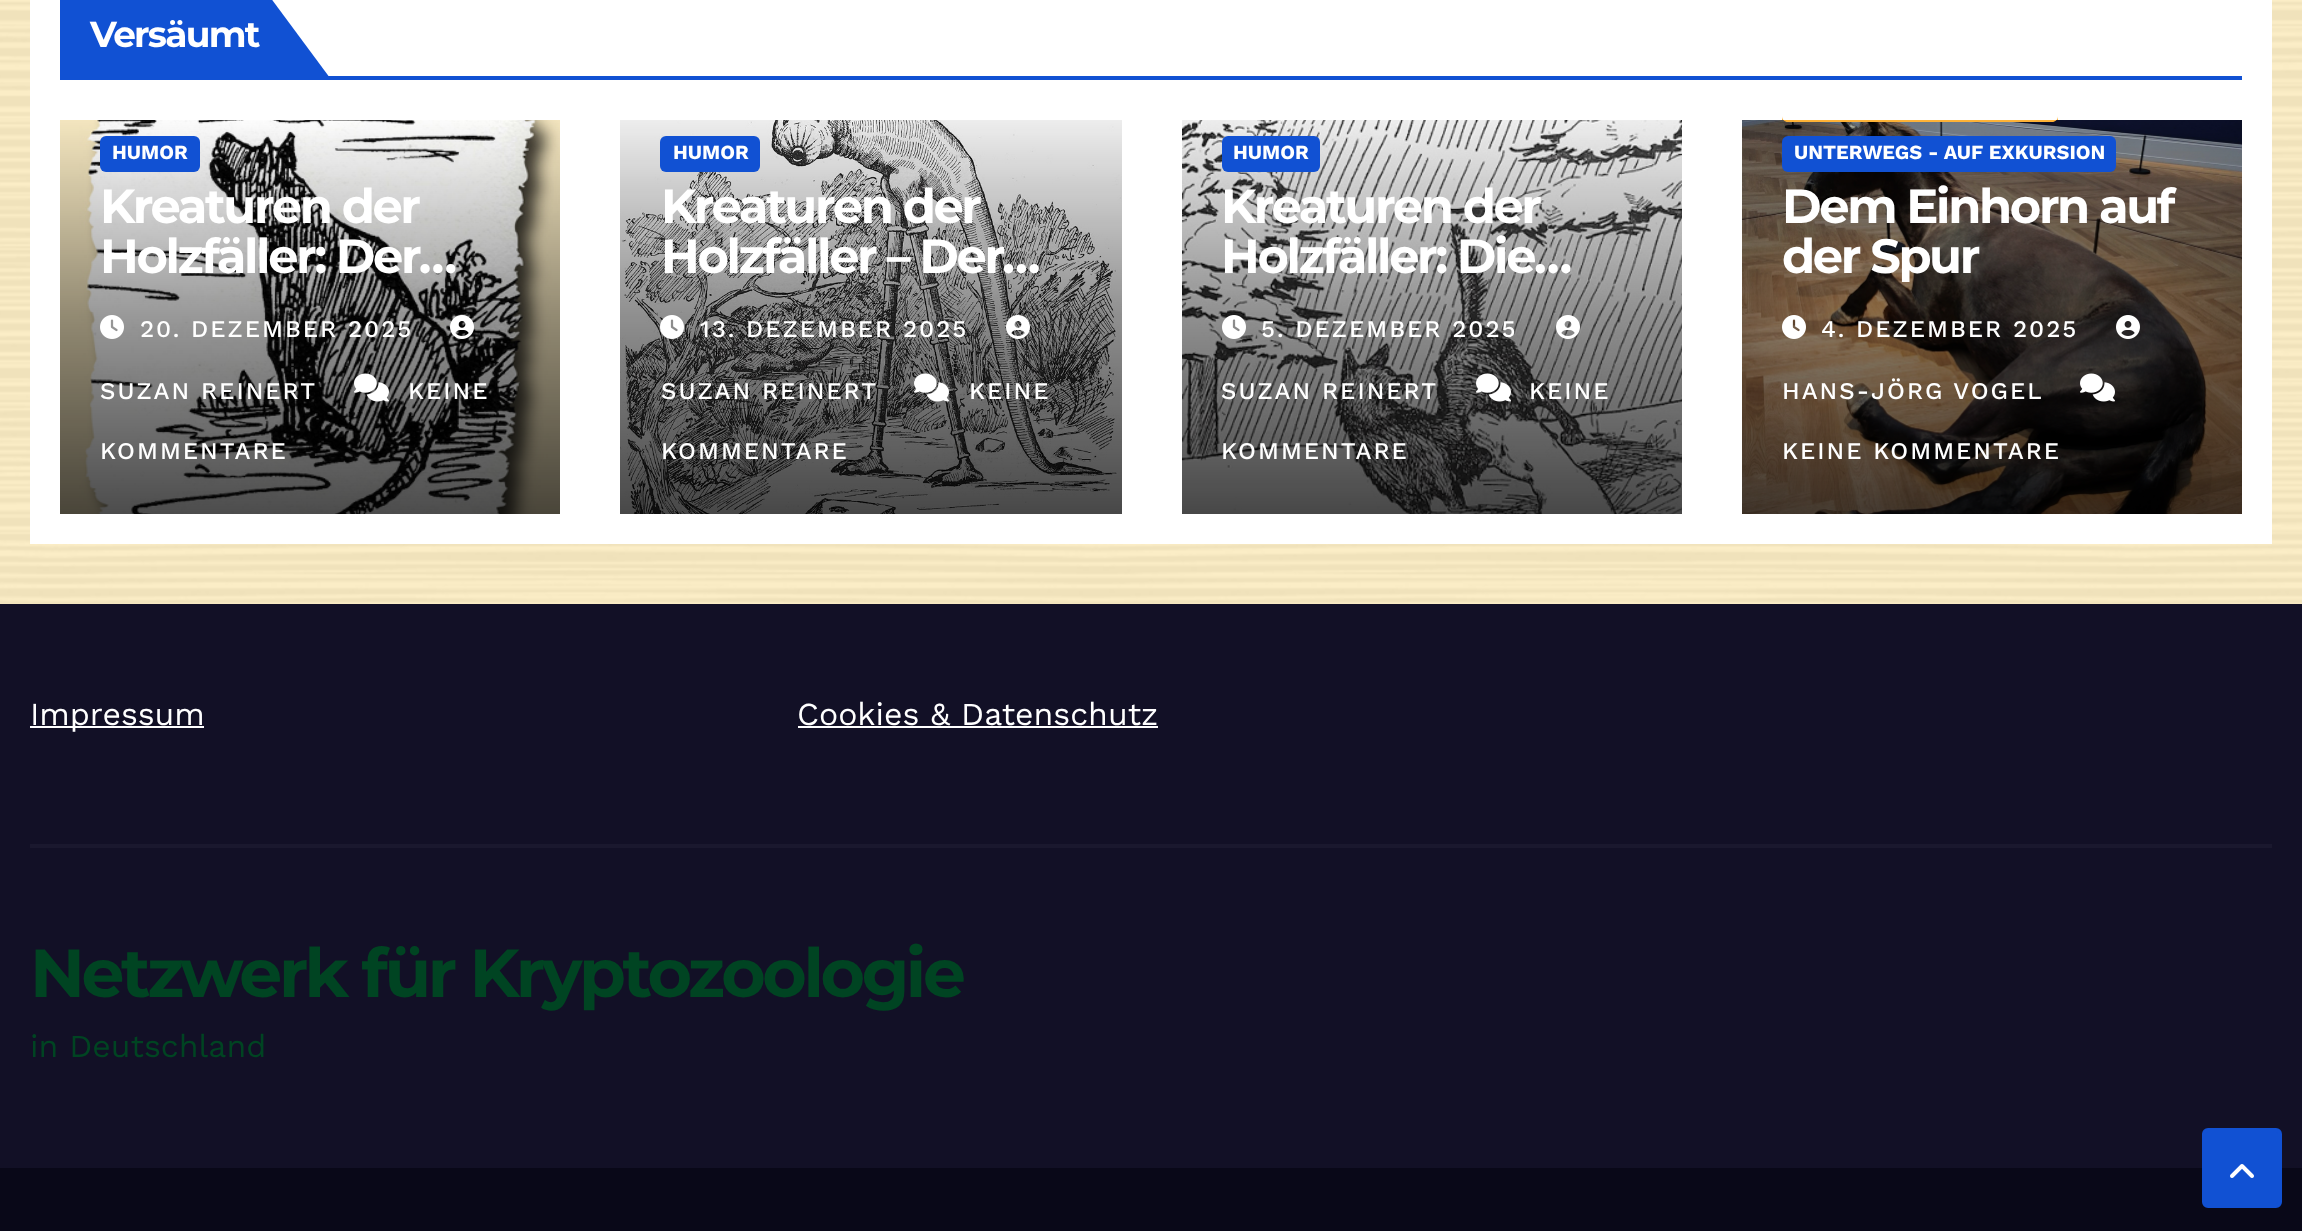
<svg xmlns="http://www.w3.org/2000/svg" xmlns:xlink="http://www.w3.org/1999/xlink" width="2302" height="1231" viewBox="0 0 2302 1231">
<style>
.cls-1{font:bold 36px Montserrat;letter-spacing:-1.75px;fill:#ffffff}
.cls-2{font:bold 20px Work Sans;fill:#ffffff}
.cls-3{font:bold 48px Montserrat;letter-spacing:-2.4px;fill:#ffffff}
.cls-4{font:500 24px Work Sans;letter-spacing:2px;fill:#ffffff}
.cls-5{font:32px Work Sans;fill:#ffffff}
.cls-6{font:bold 68px Montserrat;letter-spacing:-3.4px;fill:#004422}
.cls-7{font:32px Work Sans;fill:#004422}
</style>
<defs>
<clipPath id="clip1"><rect x="1782" y="182" width="420" height="100"/></clipPath>
</defs>
<rect width="100%" height="100%" fill="#ffffff"/>
<image xlink:href="image0.png" x="0" y="0" width="2302" height="604"/>
<rect fill="#ffffff" x="30" y="0" width="2242" height="544"/>
<rect fill="#1151d3" x="60" y="76" width="2182" height="4"/>
<rect fill="#1151d3" x="60" y="0" width="210" height="76"/>
<path fill="#1151d3" d="M270-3L330 78H270Z"/>
<image xlink:href="image1.png" x="60" y="120" width="500" height="394"/>
<rect fill="#1151d3" x="100" y="136" width="100" height="36" rx="6"/>
<image xlink:href="image2.png" x="100" y="315" width="24" height="24"/>
<image xlink:href="image3.png" x="450" y="315" width="24" height="24"/>
<image xlink:href="image4.png" x="354" y="373" width="35" height="29"/>
<image xlink:href="image5.png" x="620" y="120" width="502" height="394"/>
<rect fill="#1151d3" x="660" y="136" width="100" height="36" rx="6"/>
<image xlink:href="image6.png" x="660" y="315" width="24" height="24"/>
<image xlink:href="image7.png" x="1006" y="315" width="24" height="24"/>
<image xlink:href="image8.png" x="914" y="373" width="35" height="29"/>
<image xlink:href="image9.png" x="1182" y="120" width="500" height="394"/>
<rect fill="#1151d3" x="1222" y="136" width="98" height="36" rx="6"/>
<image xlink:href="image10.png" x="1222" y="315" width="24" height="24"/>
<image xlink:href="image11.png" x="1556" y="315" width="24" height="24"/>
<image xlink:href="image12.png" x="1476" y="373" width="35" height="29"/>
<image xlink:href="image13.png" x="1742" y="120" width="500" height="394"/>
<path fill="#feb236" d="M1782 120H2058V116C2058 119.5 2055.5 122 2052 122H1788C1784.5 122 1782 119.5 1782 116Z"/>
<rect fill="#1151d3" x="1782" y="136" width="334" height="36" rx="6"/>
<image xlink:href="image14.png" x="1782" y="315" width="24" height="24"/>
<image xlink:href="image15.png" x="2116" y="315" width="24" height="24"/>
<image xlink:href="image16.png" x="2080" y="373" width="35" height="29"/>
<rect fill="#121026" x="0" y="604" width="2302" height="564"/>
<rect fill="#ffffff" x="30" y="726" width="174" height="2"/>
<rect fill="#ffffff" x="798" y="726" width="360" height="2"/>
<rect fill="#1a182e" x="30" y="844" width="2242" height="4"/>
<rect fill="#090818" x="0" y="1168" width="2302" height="63"/>
<rect fill="#1151d3" stroke="#1151d3" stroke-width="4" x="2204" y="1130" width="76" height="76" rx="4"/>
<image xlink:href="image17.png" x="2230" y="1164" width="24" height="14"/>
<text class="cls-1" x="90" y="47">Versäumt</text>
<text class="cls-2" x="112" y="159">HUMOR</text>
<text class="cls-3"><tspan x="100" y="223">Kreaturen der</tspan><tspan x="100" y="273">Holzfäller: Der…</tspan></text>
<text class="cls-4" x="140" y="337">20. DEZEMBER 2025</text>
<text class="cls-4" x="100" y="399">SUZAN REINERT</text>
<text class="cls-4" x="408" y="399">KEINE</text>
<text class="cls-4" x="100" y="459">KOMMENTARE</text>
<text class="cls-2" x="673" y="159">HUMOR</text>
<text class="cls-3"><tspan x="661" y="223">Kreaturen der</tspan><tspan x="661" y="273">Holzfäller – Der…</tspan></text>
<text class="cls-4" x="700" y="337">13. DEZEMBER 2025</text>
<text class="cls-4" x="661" y="399">SUZAN REINERT</text>
<text class="cls-4" x="969" y="399">KEINE</text>
<text class="cls-4" x="661" y="459">KOMMENTARE</text>
<text class="cls-2" x="1233" y="159">HUMOR</text>
<text class="cls-3"><tspan x="1221" y="223">Kreaturen der</tspan><tspan x="1221" y="273">Holzfäller: Die…</tspan></text>
<text class="cls-4" x="1261" y="337">5. DEZEMBER 2025</text>
<text class="cls-4" x="1221" y="399">SUZAN REINERT</text>
<text class="cls-4" x="1529" y="399">KEINE</text>
<text class="cls-4" x="1221" y="459">KOMMENTARE</text>
<text class="cls-2" x="1794" y="159">UNTERWEGS - AUF EXKURSION</text>
<text class="cls-3" x="1782" y="223">Dem Einhorn auf</text>
<g clip-path="url(#clip1)">
<text class="cls-3" x="1782" y="273">der Spur</text>
</g>
<text class="cls-4" x="1821" y="337">4. DEZEMBER 2025</text>
<text class="cls-4" x="1782" y="399">HANS-JÖRG VOGEL</text>
<text class="cls-4" x="1782" y="459">KEINE KOMMENTARE</text>
<text class="cls-5" x="30" y="725">Impressum</text>
<text class="cls-5" x="797" y="725">Cookies &amp; Datenschutz</text>
<text class="cls-6" x="30" y="997">Netzwerk für Kryptozoologie</text>
<text class="cls-7" x="30" y="1057">in Deutschland</text>
</svg>
